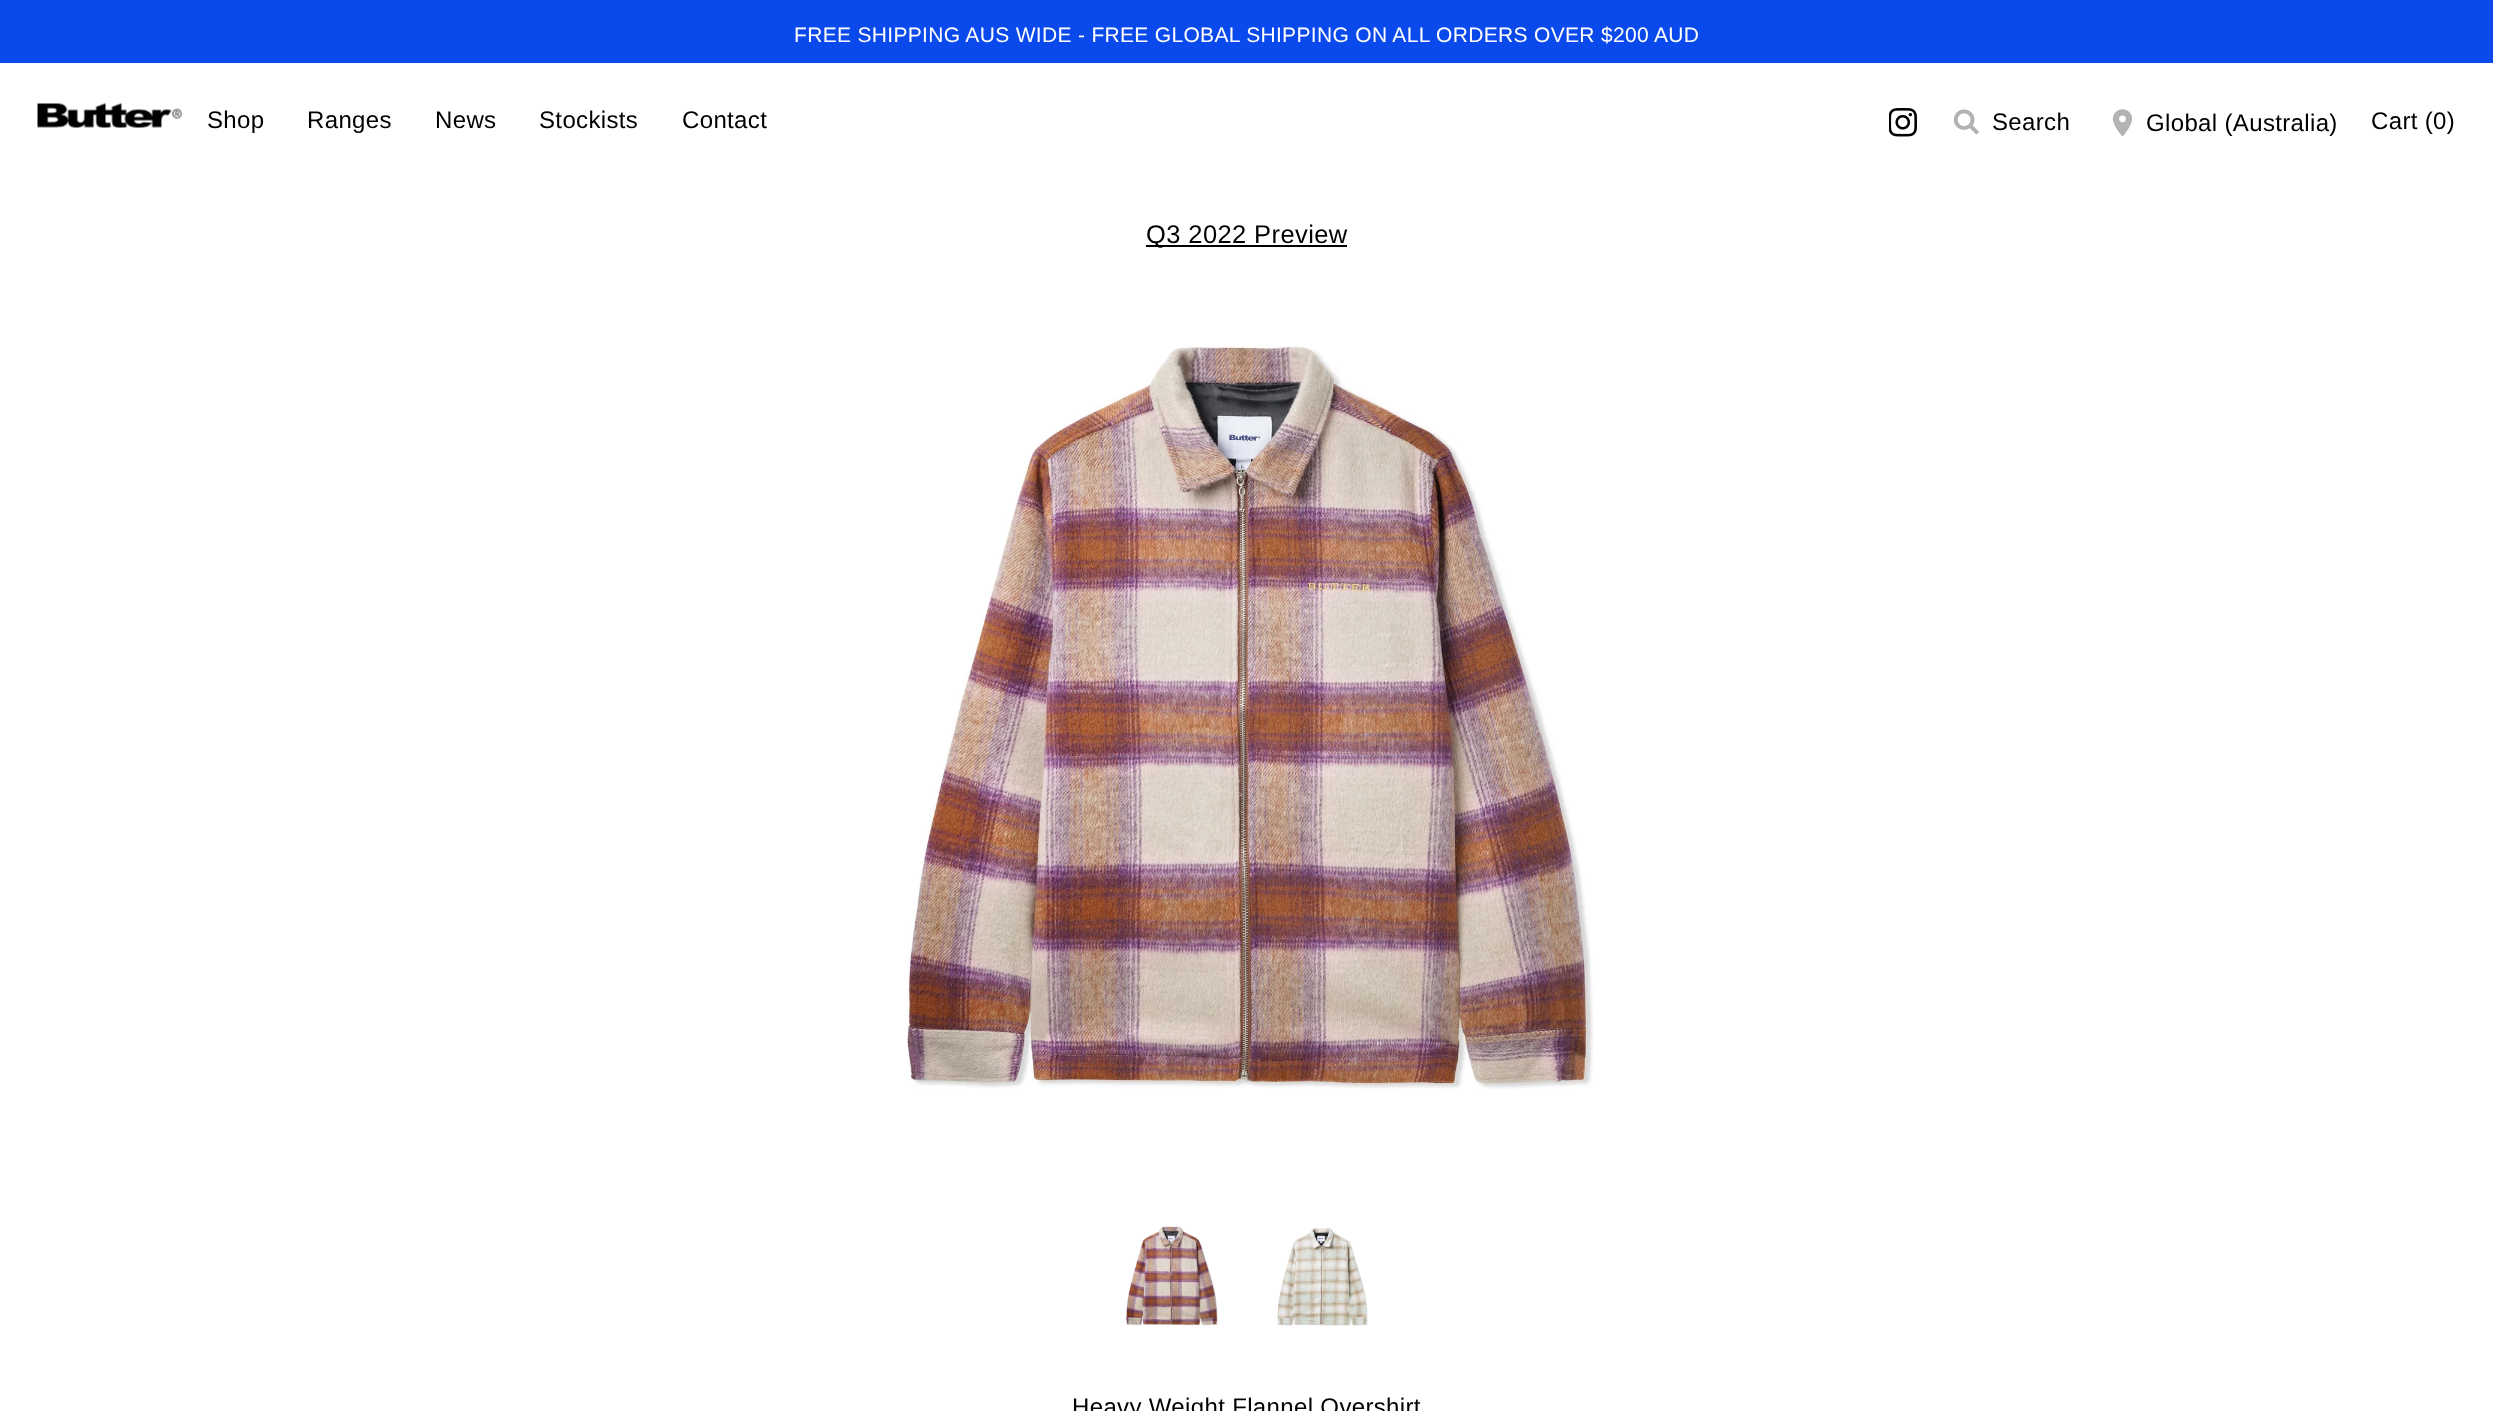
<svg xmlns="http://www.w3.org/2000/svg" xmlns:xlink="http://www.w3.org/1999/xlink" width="2493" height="1411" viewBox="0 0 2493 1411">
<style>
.cls-1{font:21px Liberation Sans;letter-spacing:0.32px;fill:#ffffff}
.cls-2{font:24px Liberation Sans;letter-spacing:0.35px;fill:#000000}
.cls-3{font:25.5px Liberation Sans;letter-spacing:0.4px;fill:#000000}
</style>
<rect width="100%" height="100%" fill="#ffffff"/>
<rect fill="#0a49ec" x="0" y="0" width="2493" height="63"/>
<image xlink:href="image0.png" x="37" y="103" width="145" height="25"/>
<image xlink:href="image1.png" x="1889" y="108" width="28" height="29"/>
<image xlink:href="image2.png" x="1953" y="109" width="26" height="26"/>
<image xlink:href="image3.png" x="2112" y="109" width="21" height="27"/>
<rect fill="#000000" x="1146" y="245" width="201" height="2"/>
<image xlink:href="image4.png" x="907" y="346" width="687" height="743"/>
<image xlink:href="image5.png" x="1126" y="1226" width="92" height="100"/>
<image xlink:href="image6.png" x="1277" y="1228" width="91" height="98"/>
<text class="cls-1" x="794" y="42">FREE SHIPPING AUS WIDE - FREE GLOBAL SHIPPING ON ALL ORDERS OVER $200 AUD</text>
<text class="cls-2" x="207" y="128">Shop</text>
<text class="cls-2" x="307" y="128">Ranges</text>
<text class="cls-2" x="435" y="128">News</text>
<text class="cls-2" x="539" y="128">Stockists</text>
<text class="cls-2" x="682" y="128">Contact</text>
<text class="cls-2" x="1992" y="130">Search</text>
<text class="cls-2" x="2146" y="131">Global (Australia)</text>
<text class="cls-2" x="2371" y="129">Cart (0)</text>
<text class="cls-3" x="1146" y="243">Q3 2022 Preview</text>
<text class="cls-2" x="1072" y="1415">Heavy Weight Flannel Overshirt</text>
</svg>
